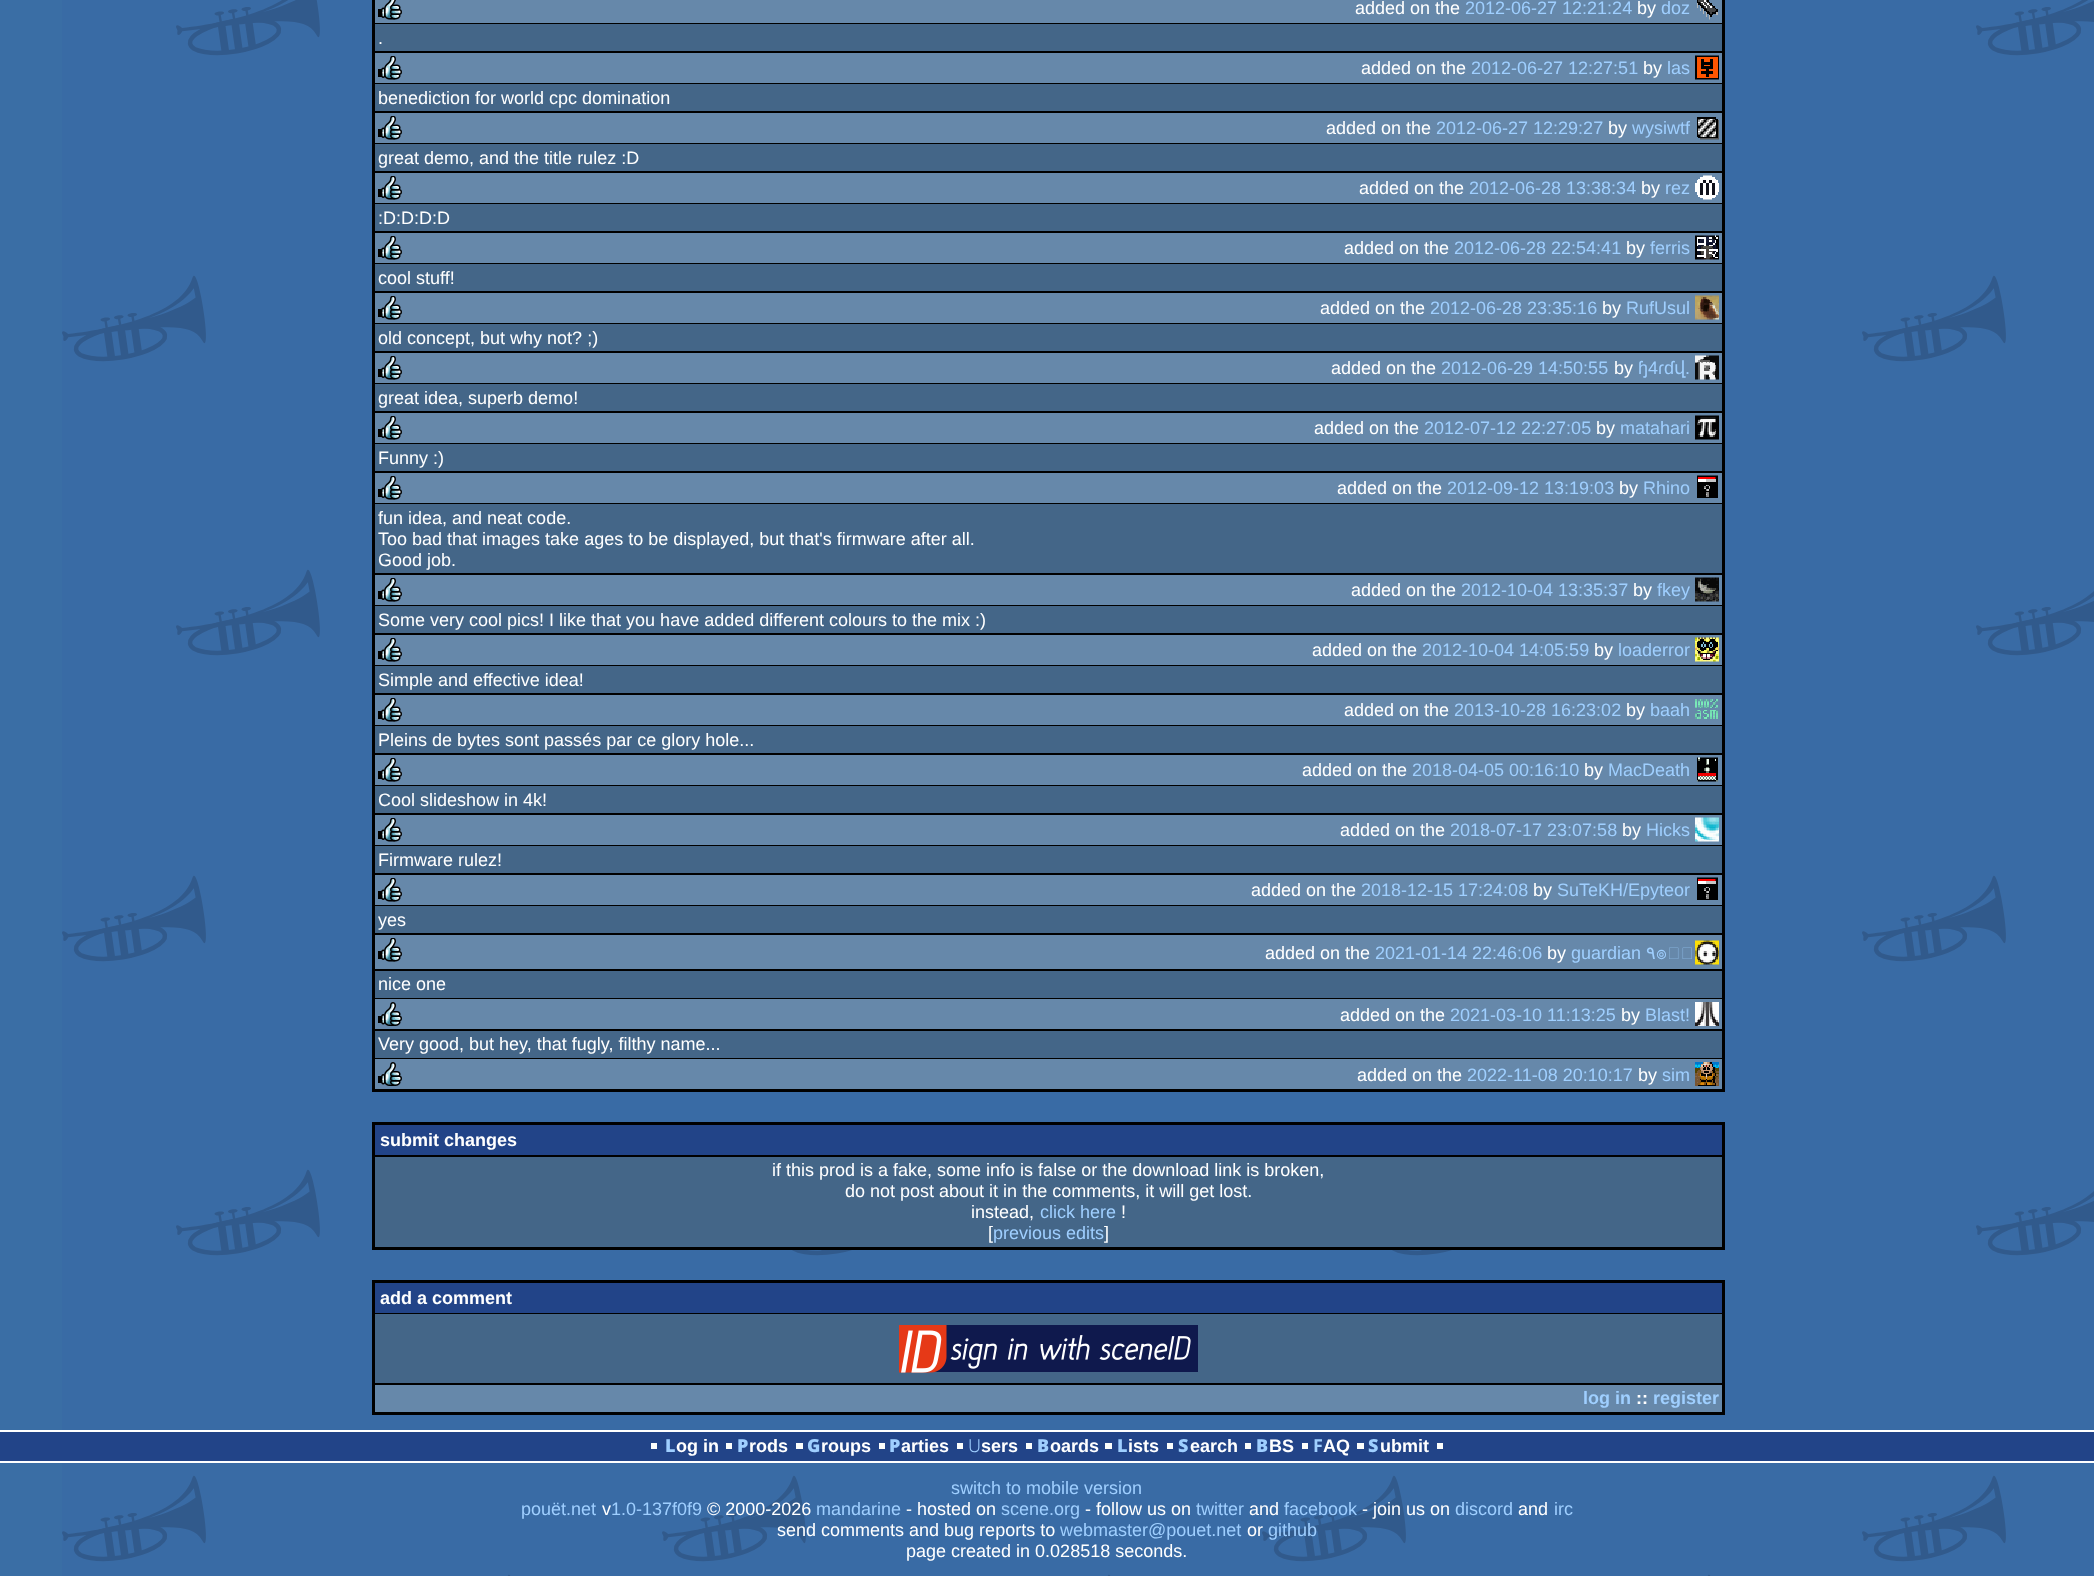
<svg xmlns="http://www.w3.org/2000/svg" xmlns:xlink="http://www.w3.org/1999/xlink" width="2094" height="1576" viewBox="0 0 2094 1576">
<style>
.cls-1{font:18px Liberation Sans;fill:#ffffff}
.cls-2{font:18px Liberation Sans;fill:#9fcfff}
.cls-3{font:18px DejaVu Sans;fill:#9fcfff}
.cls-4{font:18px Loma;fill:#9fcfff}
.cls-5{font:bold 18px Liberation Sans;fill:#ffffff}
.cls-6{font:bold 18px Liberation Sans;fill:#9fcfff}
.cls-7{font:900 18px Noto Sans;fill:#9fcfff}
.cls-8{font:300 18px Noto Sans;fill:#9fcfff}
.cls-9{font:bold 18px Noto Sans;fill:#9fcfff}
</style>
<rect width="100%" height="100%" fill="#3a6ea5"/>
<image xlink:href="image0.png" x="62" y="0" width="2032" height="1576"/>
<rect fill="#000000" x="372" y="0" width="1353" height="1092"/>
<rect fill="#6688aa" x="375" y="0" width="1347" height="23"/>
<image xlink:href="image1.png" x="378" y="0" width="24" height="20"/>
<image xlink:href="image2.png" x="1697" y="0" width="21" height="20"/>
<rect fill="#446688" x="375" y="24" width="1347" height="27"/>
<rect fill="#6688aa" x="375" y="53" width="1347" height="30"/>
<image xlink:href="image3.png" x="378" y="56" width="24" height="24"/>
<image xlink:href="image4.png" x="1695" y="55" width="24" height="25"/>
<rect fill="#446688" x="375" y="84" width="1347" height="27"/>
<rect fill="#6688aa" x="375" y="113" width="1347" height="30"/>
<image xlink:href="image3.png" x="378" y="116" width="24" height="24"/>
<image xlink:href="image5.png" x="1697" y="117" width="22" height="23"/>
<rect fill="#446688" x="375" y="144" width="1347" height="27"/>
<rect fill="#6688aa" x="375" y="173" width="1347" height="30"/>
<image xlink:href="image3.png" x="378" y="176" width="24" height="24"/>
<image xlink:href="image6.png" x="1695" y="175" width="24" height="25"/>
<rect fill="#446688" x="375" y="204" width="1347" height="27"/>
<rect fill="#6688aa" x="375" y="233" width="1347" height="30"/>
<image xlink:href="image3.png" x="378" y="236" width="24" height="24"/>
<image xlink:href="image7.png" x="1695" y="235" width="24" height="25"/>
<rect fill="#446688" x="375" y="264" width="1347" height="27"/>
<rect fill="#6688aa" x="375" y="293" width="1347" height="30"/>
<image xlink:href="image3.png" x="378" y="296" width="24" height="24"/>
<image xlink:href="image8.png" x="1695" y="295" width="24" height="25"/>
<rect fill="#446688" x="375" y="324" width="1347" height="27"/>
<rect fill="#6688aa" x="375" y="353" width="1347" height="30"/>
<image xlink:href="image3.png" x="378" y="356" width="24" height="24"/>
<image xlink:href="image9.png" x="1695" y="355" width="24" height="25"/>
<rect fill="#446688" x="375" y="384" width="1347" height="27"/>
<rect fill="#6688aa" x="375" y="413" width="1347" height="30"/>
<image xlink:href="image3.png" x="378" y="416" width="24" height="24"/>
<image xlink:href="image10.png" x="1695" y="415" width="24" height="25"/>
<rect fill="#446688" x="375" y="444" width="1347" height="27"/>
<rect fill="#6688aa" x="375" y="473" width="1347" height="30"/>
<image xlink:href="image3.png" x="378" y="476" width="24" height="24"/>
<image xlink:href="image11.png" x="1697" y="475" width="21" height="23"/>
<rect fill="#446688" x="375" y="504" width="1347" height="69"/>
<rect fill="#6688aa" x="375" y="575" width="1347" height="30"/>
<image xlink:href="image3.png" x="378" y="578" width="24" height="24"/>
<image xlink:href="image12.png" x="1695" y="577" width="24" height="25"/>
<rect fill="#446688" x="375" y="606" width="1347" height="27"/>
<rect fill="#6688aa" x="375" y="635" width="1347" height="30"/>
<image xlink:href="image3.png" x="378" y="638" width="24" height="24"/>
<image xlink:href="image13.png" x="1695" y="637" width="24" height="25"/>
<rect fill="#446688" x="375" y="666" width="1347" height="27"/>
<rect fill="#6688aa" x="375" y="695" width="1347" height="30"/>
<image xlink:href="image3.png" x="378" y="698" width="24" height="24"/>
<image xlink:href="image14.png" x="1695" y="699" width="23" height="20"/>
<rect fill="#446688" x="375" y="726" width="1347" height="27"/>
<rect fill="#6688aa" x="375" y="755" width="1347" height="30"/>
<image xlink:href="image3.png" x="378" y="758" width="24" height="24"/>
<image xlink:href="image15.png" x="1697" y="757" width="21" height="25"/>
<rect fill="#446688" x="375" y="786" width="1347" height="27"/>
<rect fill="#6688aa" x="375" y="815" width="1347" height="30"/>
<image xlink:href="image3.png" x="378" y="818" width="24" height="24"/>
<image xlink:href="image16.png" x="1695" y="817" width="24" height="25"/>
<rect fill="#446688" x="375" y="846" width="1347" height="27"/>
<rect fill="#6688aa" x="375" y="875" width="1347" height="30"/>
<image xlink:href="image3.png" x="378" y="878" width="24" height="24"/>
<image xlink:href="image11.png" x="1697" y="877" width="21" height="23"/>
<rect fill="#446688" x="375" y="906" width="1347" height="27"/>
<rect fill="#6688aa" x="375" y="935" width="1347" height="34"/>
<image xlink:href="image3.png" x="378" y="938" width="24" height="24"/>
<image xlink:href="image17.png" x="1695" y="940" width="24" height="25"/>
<rect fill="#446688" x="375" y="971" width="1347" height="27"/>
<rect fill="#6688aa" x="375" y="999" width="1347" height="30"/>
<image xlink:href="image18.png" x="378" y="1002" width="24" height="24"/>
<image xlink:href="image19.png" x="1695" y="1002" width="24" height="24"/>
<rect fill="#446688" x="375" y="1031" width="1347" height="27"/>
<rect fill="#6688aa" x="375" y="1059" width="1347" height="30"/>
<image xlink:href="image18.png" x="378" y="1062" width="24" height="24"/>
<image xlink:href="image20.png" x="1695" y="1062" width="24" height="24"/>
<rect fill="#000000" x="372" y="1122" width="1353" height="128"/>
<rect fill="#224488" x="375" y="1125" width="1347" height="30"/>
<rect fill="#446688" x="375" y="1157" width="1347" height="90"/>
<rect fill="#000000" x="372" y="1280" width="1353" height="135"/>
<rect fill="#224488" x="375" y="1283" width="1347" height="30"/>
<rect fill="#446688" x="375" y="1314" width="1347" height="69"/>
<image xlink:href="image21.png" x="899" y="1325" width="299" height="48"/>
<rect fill="#6688aa" x="375" y="1385" width="1347" height="27"/>
<rect fill="#224488" x="0" y="1432" width="2094" height="29"/>
<rect fill="#ffffff" x="0" y="1430" width="2094" height="2"/>
<rect fill="#ffffff" x="0" y="1461" width="2094" height="2"/>
<image xlink:href="image22.png" x="651" y="1443" width="81" height="6"/>
<rect fill="#fcfefc" x="796" y="1443" width="7" height="6"/>
<rect fill="#fcfefc" x="879" y="1443" width="6" height="6"/>
<rect fill="#fcfefc" x="957" y="1443" width="6" height="6"/>
<rect fill="#fcfefc" x="1026" y="1443" width="6" height="6"/>
<rect fill="#fcfefc" x="1105" y="1443" width="7" height="6"/>
<rect fill="#fcfefc" x="1167" y="1443" width="6" height="6"/>
<rect fill="#fcfefc" x="1245" y="1443" width="6" height="6"/>
<rect fill="#fcfefc" x="1302" y="1443" width="6" height="6"/>
<rect fill="#fcfefc" x="1357" y="1443" width="7" height="6"/>
<rect fill="#fcfefc" x="1437" y="1443" width="6" height="6"/>
<text class="cls-1" x="1355" y="14">added on the</text>
<text class="cls-2" x="1465" y="14">2012-06-27 12:21:24</text>
<text class="cls-1" x="1637" y="14">by</text>
<text class="cls-2" x="1661" y="14">doz</text>
<text class="cls-1" x="378" y="44">.</text>
<text class="cls-1" x="1361" y="74">added on the</text>
<text class="cls-2" x="1471" y="74">2012-06-27 12:27:51</text>
<text class="cls-1" x="1643" y="74">by</text>
<text class="cls-2" x="1667" y="74">las</text>
<text class="cls-1" x="378" y="104">benediction for world cpc domination</text>
<text class="cls-1" x="1326" y="134">added on the</text>
<text class="cls-2" x="1436" y="134">2012-06-27 12:29:27</text>
<text class="cls-1" x="1608" y="134">by</text>
<text class="cls-2" x="1632" y="134">wysiwtf</text>
<text class="cls-1" x="378" y="164">great demo, and the title rulez :D</text>
<text class="cls-1" x="1359" y="194">added on the</text>
<text class="cls-2" x="1469" y="194">2012-06-28 13:38:34</text>
<text class="cls-1" x="1641" y="194">by</text>
<text class="cls-2" x="1665" y="194">rez</text>
<text class="cls-1" x="378" y="224">:D:D:D:D</text>
<text class="cls-1" x="1344" y="254">added on the</text>
<text class="cls-2" x="1454" y="254">2012-06-28 22:54:41</text>
<text class="cls-1" x="1626" y="254">by</text>
<text class="cls-2" x="1650" y="254">ferris</text>
<text class="cls-1" x="378" y="284">cool stuff!</text>
<text class="cls-1" x="1320" y="314">added on the</text>
<text class="cls-2" x="1430" y="314">2012-06-28 23:35:16</text>
<text class="cls-1" x="1602" y="314">by</text>
<text class="cls-2" x="1626" y="314">RufUsul</text>
<text class="cls-1" x="378" y="344">old concept, but why not? ;)</text>
<text class="cls-1" x="1331" y="374">added on the</text>
<text class="cls-2" x="1441" y="374">2012-06-29 14:50:55</text>
<text class="cls-1" x="1614" y="374">by</text>
<text class="cls-2" x="1638" y="374">ɧ4ɾɗ</text>
<text class="cls-3" x="1674" y="374">վ</text>
<text class="cls-2" x="1685" y="374">.</text>
<text class="cls-1" x="378" y="404">great idea, superb demo!</text>
<text class="cls-1" x="1314" y="434">added on the</text>
<text class="cls-2" x="1424" y="434">2012-07-12 22:27:05</text>
<text class="cls-1" x="1596" y="434">by</text>
<text class="cls-2" x="1620" y="434">matahari</text>
<text class="cls-1" x="378" y="464">Funny :)</text>
<text class="cls-1" x="1337" y="494">added on the</text>
<text class="cls-2" x="1447" y="494">2012-09-12 13:19:03</text>
<text class="cls-1" x="1619" y="494">by</text>
<text class="cls-2" x="1643" y="494">Rhino</text>
<text class="cls-1"><tspan x="378" y="524">fun idea, and neat code.</tspan><tspan x="378" y="545">Too bad that images take ages to be displayed, but that's firmware after all.</tspan><tspan x="378" y="566">Good job.</tspan></text>
<text class="cls-1" x="1351" y="596">added on the</text>
<text class="cls-2" x="1461" y="596">2012-10-04 13:35:37</text>
<text class="cls-1" x="1633" y="596">by</text>
<text class="cls-2" x="1657" y="596">fkey</text>
<text class="cls-1" x="378" y="626">Some very cool pics! I like that you have added different colours to the mix :)</text>
<text class="cls-1" x="1312" y="656">added on the</text>
<text class="cls-2" x="1422" y="656">2012-10-04 14:05:59</text>
<text class="cls-1" x="1594" y="656">by</text>
<text class="cls-2" x="1618" y="656">loaderror</text>
<text class="cls-1" x="378" y="686">Simple and effective idea!</text>
<text class="cls-1" x="1344" y="716">added on the</text>
<text class="cls-2" x="1454" y="716">2013-10-28 16:23:02</text>
<text class="cls-1" x="1626" y="716">by</text>
<text class="cls-2" x="1650" y="716">baah</text>
<text class="cls-1" x="378" y="746">Pleins de bytes sont passés par ce glory hole...</text>
<text class="cls-1" x="1302" y="776">added on the</text>
<text class="cls-2" x="1412" y="776">2018-04-05 00:16:10</text>
<text class="cls-1" x="1584" y="776">by</text>
<text class="cls-2" x="1608" y="776">MacDeath</text>
<text class="cls-1" x="378" y="806">Cool slideshow in 4k!</text>
<text class="cls-1" x="1340" y="836">added on the</text>
<text class="cls-2" x="1450" y="836">2018-07-17 23:07:58</text>
<text class="cls-1" x="1622" y="836">by</text>
<text class="cls-2" x="1646" y="836">Hicks</text>
<text class="cls-1" x="378" y="866">Firmware rulez!</text>
<text class="cls-1" x="1251" y="896">added on the</text>
<text class="cls-2" x="1361" y="896">2018-12-15 17:24:08</text>
<text class="cls-1" x="1533" y="896">by</text>
<text class="cls-2" x="1557" y="896">SuTeKH/Epyteor</text>
<text class="cls-1" x="378" y="926">yes</text>
<text class="cls-1" x="1265" y="959">added on the</text>
<text class="cls-2" x="1375" y="959">2021-01-14 22:46:06</text>
<text class="cls-1" x="1547" y="959">by</text>
<text class="cls-2" x="1571" y="959">guardian</text>
<text class="cls-3" x="1646" y="959">٩</text>
<text class="cls-4" x="1656" y="959">๏̯͡</text>
<text class="cls-1" x="378" y="990">nice one</text>
<text class="cls-1" x="1340" y="1021">added on the</text>
<text class="cls-2" x="1450" y="1021">2021-03-10 11:13:25</text>
<text class="cls-1" x="1621" y="1021">by</text>
<text class="cls-2" x="1645" y="1021">Blast!</text>
<text class="cls-1" x="378" y="1050">Very good, but hey, that fugly, filthy name...</text>
<text class="cls-1" x="1357" y="1081">added on the</text>
<text class="cls-2" x="1467" y="1081">2022-11-08 20:10:17</text>
<text class="cls-1" x="1638" y="1081">by</text>
<text class="cls-2" x="1662" y="1081">sim</text>
<text class="cls-5" x="380" y="1146">submit changes</text>
<text class="cls-1" x="772" y="1176">if this prod is a fake, some info is false or the download link is broken,</text>
<text class="cls-1" x="845" y="1197">do not post about it in the comments, it will get lost.</text>
<text class="cls-1" x="971" y="1218">instead,</text>
<text class="cls-2" x="1040" y="1218">click here</text>
<text class="cls-1" x="1121" y="1218">!</text>
<text class="cls-1" x="988" y="1239">[</text>
<text class="cls-2" x="993" y="1239">previous edits</text>
<text class="cls-1" x="1104" y="1239">]</text>
<text class="cls-5" x="380" y="1304">add a comment</text>
<text class="cls-6" x="1583" y="1404">log in</text>
<text class="cls-5" x="1636" y="1404">::</text>
<text class="cls-6" x="1653" y="1404">register</text>
<text class="cls-7" x="665" y="1452">L</text>
<text class="cls-5" x="676" y="1452">og in</text>
<text class="cls-7" x="737" y="1452">P</text>
<text class="cls-5" x="749" y="1452">rods</text>
<text class="cls-7" x="807" y="1452">G</text>
<text class="cls-5" x="821" y="1452">roups</text>
<text class="cls-7" x="889" y="1452">P</text>
<text class="cls-5" x="901" y="1452">arties</text>
<text class="cls-8" x="968" y="1452">U</text>
<text class="cls-5" x="981" y="1452">sers</text>
<text class="cls-7" x="1037" y="1452">B</text>
<text class="cls-5" x="1050" y="1452">oards</text>
<text class="cls-7" x="1117" y="1452">L</text>
<text class="cls-5" x="1128" y="1452">ists</text>
<text class="cls-7" x="1178" y="1452">S</text>
<text class="cls-5" x="1190" y="1452">earch</text>
<text class="cls-7" x="1256" y="1452">B</text>
<text class="cls-5" x="1269" y="1452">BS</text>
<text class="cls-9" x="1313" y="1452">F</text>
<text class="cls-5" x="1323" y="1452">AQ</text>
<text class="cls-7" x="1368" y="1452">S</text>
<text class="cls-5" x="1380" y="1452">ubmit</text>
<text class="cls-2" x="951" y="1494">switch to mobile version</text>
<text class="cls-2" x="521" y="1515">pouët.net</text>
<text class="cls-1" x="602" y="1515">v</text>
<text class="cls-2" x="611" y="1515">1.0-137f0f9</text>
<text class="cls-1" x="707" y="1515">© 2000-2026</text>
<text class="cls-2" x="816" y="1515">mandarine</text>
<text class="cls-1" x="906" y="1515">- hosted on</text>
<text class="cls-2" x="1001" y="1515">scene.org</text>
<text class="cls-1" x="1085" y="1515">- follow us on</text>
<text class="cls-2" x="1196" y="1515">twitter</text>
<text class="cls-1" x="1249" y="1515">and</text>
<text class="cls-2" x="1284" y="1515">facebook</text>
<text class="cls-1" x="1362" y="1515">- join us on</text>
<text class="cls-2" x="1455" y="1515">discord</text>
<text class="cls-1" x="1518" y="1515">and</text>
<text class="cls-2" x="1554" y="1515">irc</text>
<text class="cls-1" x="777" y="1536">send comments and bug reports to</text>
<text class="cls-2" x="1060" y="1536">webmaster@pouet.net</text>
<text class="cls-1" x="1247" y="1536">or</text>
<text class="cls-2" x="1268" y="1536">github</text>
<text class="cls-1" x="906" y="1557">page created in 0.028518 seconds.</text>
</svg>
